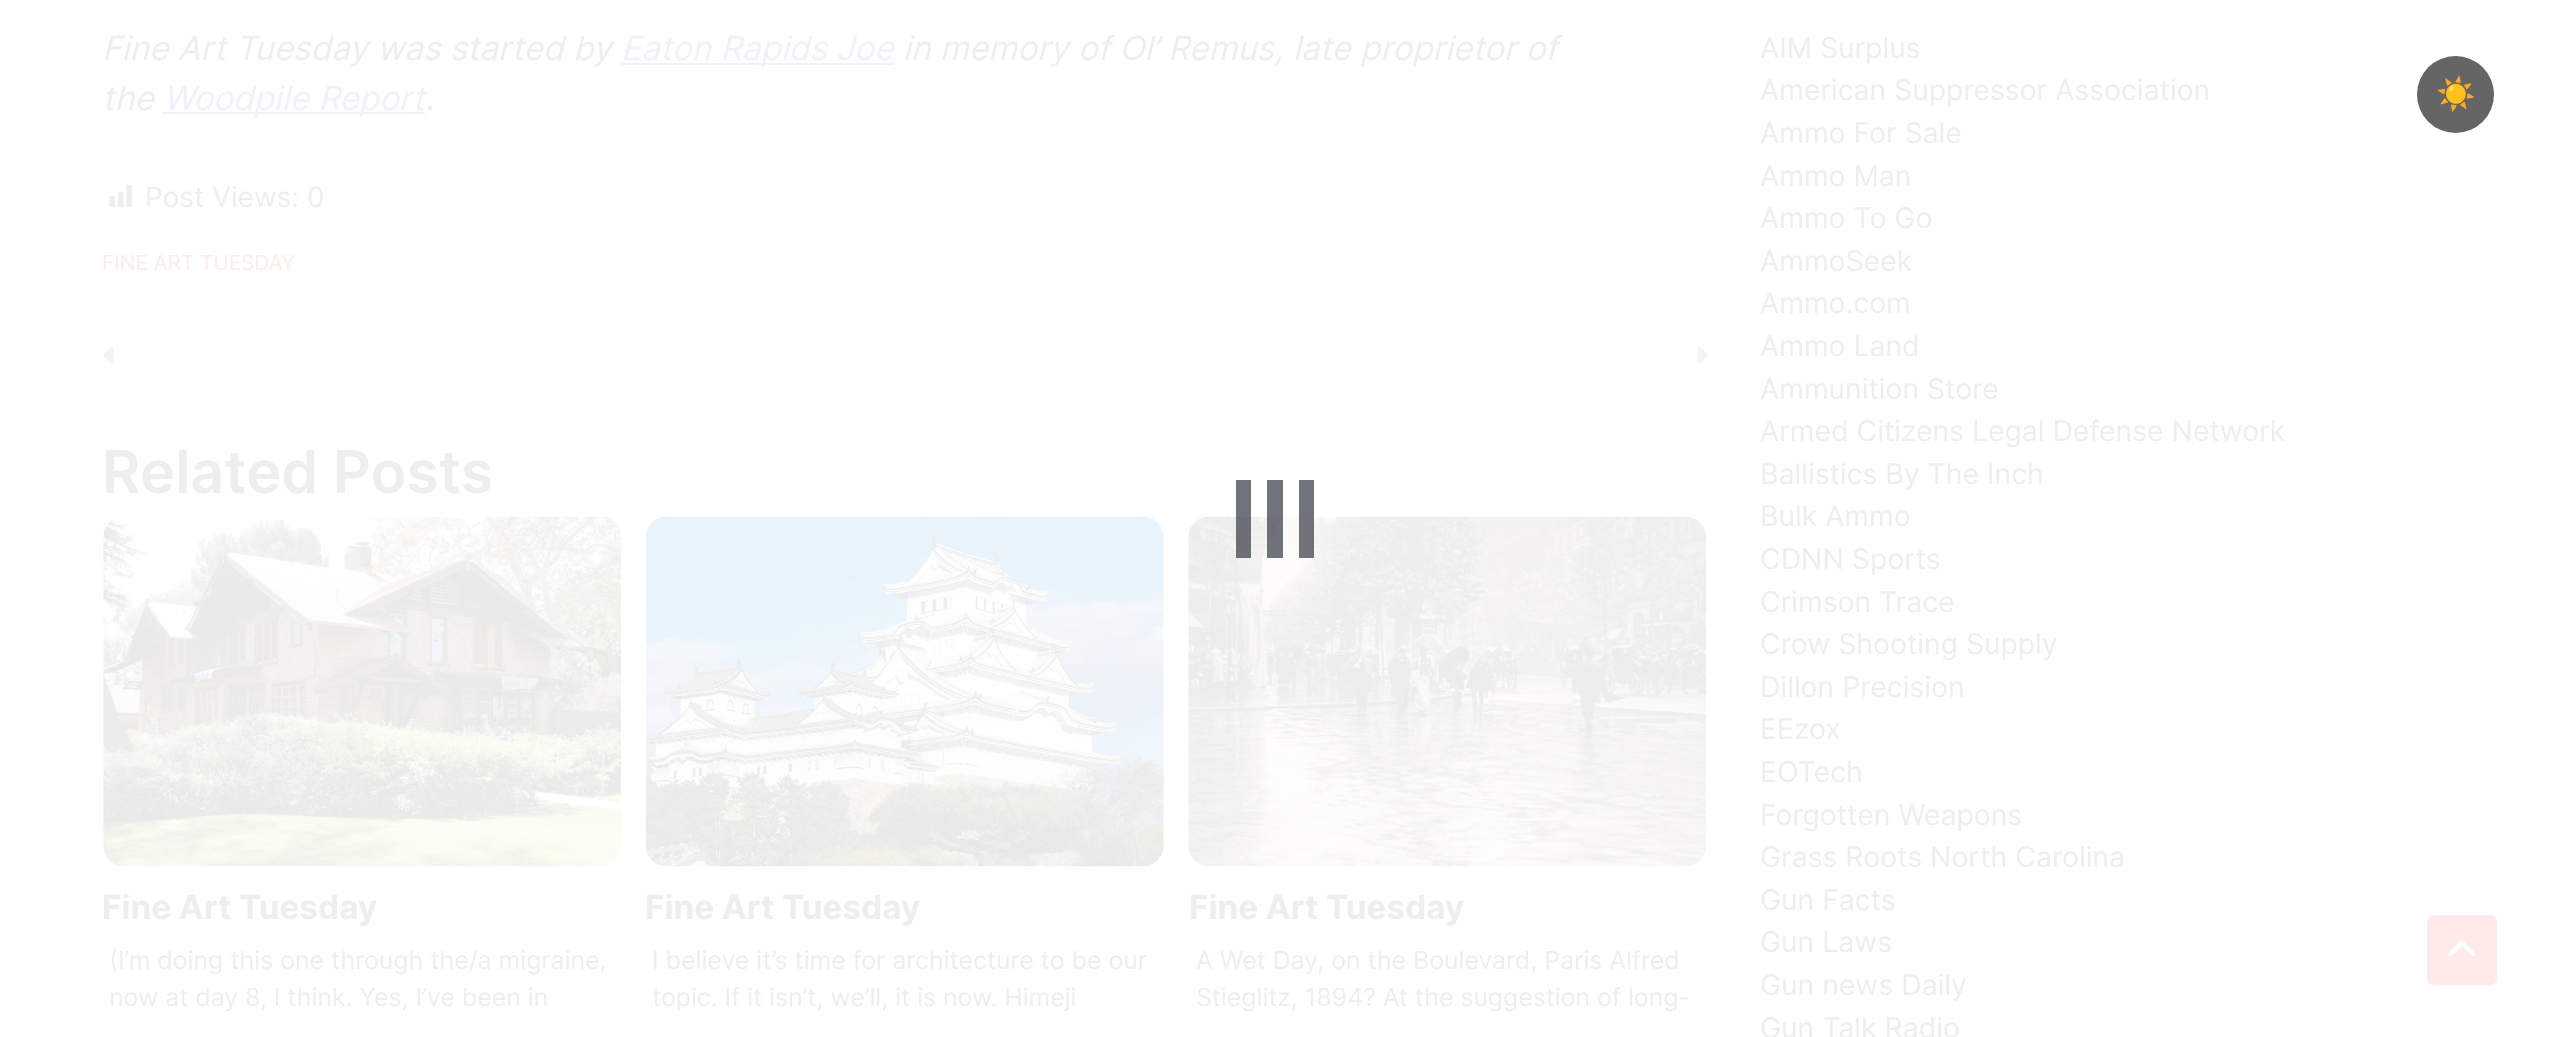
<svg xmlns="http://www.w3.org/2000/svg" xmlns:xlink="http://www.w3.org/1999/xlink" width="2549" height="1037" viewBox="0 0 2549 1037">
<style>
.cls-1{font:italic 33.3px Inter;fill:#edeeee}
.cls-2{font:italic 33.3px Inter;fill:#eef2fc}
.cls-3{font:28px Inter;fill:#edeeee}
.cls-4{font:20.75px Inter;fill:#ffeaea}
.cls-5{font:600 59px Inter;fill:#edeeee}
.cls-6{font:bold 33.3px Inter;fill:#edeeee}
.cls-7{font:24.9px Inter;fill:#edeeee}
.cls-8{font:28.4px Inter;fill:#edeeee}
.cls-9{font:bold 32px Noto Color Emoji;fill:#edeeee}
</style>
<rect width="100%" height="100%" fill="#ffffff"/>
<rect fill="#eef2fc" x="621" y="63" width="273" height="2"/>
<rect fill="#eef2fc" x="163" y="112" width="262" height="2"/>
<image xlink:href="image0.png" x="109" y="184" width="23" height="24"/>
<image xlink:href="image1.png" x="103" y="346" width="11" height="18"/>
<image xlink:href="image2.png" x="1697" y="346" width="11" height="18"/>
<image xlink:href="image3.png" x="103" y="516" width="519" height="351"/>
<image xlink:href="image4.png" x="645" y="516" width="519" height="351"/>
<image xlink:href="image5.png" x="1188" y="516" width="519" height="351"/>
<rect fill="#393e46" fill-opacity="0.72" x="1299" y="480" width="15" height="78"/>
<rect fill="#393e46" fill-opacity="0.72" x="1267" y="480" width="16" height="78"/>
<rect fill="#393e46" fill-opacity="0.72" x="1236" y="480" width="15" height="78"/>
<rect fill="#ffeaea" x="2427" y="915" width="70" height="70" rx="7"/>
<image xlink:href="image6.png" x="2448" y="940" width="27" height="16"/>
<circle fill="#656565" cx="2455.5" cy="94.5" r="38.5"/>
<text class="cls-1" x="102" y="60">Fine Art Tuesday was started by</text>
<text class="cls-2" x="621" y="60">Eaton Rapids Joe</text>
<text class="cls-1" x="903" y="60">in memory of Ol’ Remus, late proprietor of</text>
<text class="cls-1" x="102" y="110">the</text>
<text class="cls-2" x="163" y="110">Woodpile Report</text>
<text class="cls-1" x="425" y="110">.</text>
<text class="cls-3" x="145" y="207">Post Views: 0</text>
<text class="cls-4" x="102" y="270">FINE ART TUESDAY</text>
<text class="cls-5" x="102" y="493">Related Posts</text>
<text class="cls-6" x="102" y="919">Fine Art Tuesday</text>
<text class="cls-7"><tspan x="109" y="969">(I’m doing this one through the/a migraine,</tspan><tspan x="109" y="1006">now at day 8, I think. Yes, I’ve been in</tspan></text>
<text class="cls-6" x="645" y="919">Fine Art Tuesday</text>
<text class="cls-7"><tspan x="652" y="969">I believe it’s time for architecture to be our</tspan><tspan x="652" y="1006">topic. If it isn’t, we’ll, it is now. Himeji</tspan></text>
<text class="cls-6" x="1189" y="919">Fine Art Tuesday</text>
<text class="cls-7"><tspan x="1196" y="969">A Wet Day, on the Boulevard, Paris Alfred</tspan><tspan x="1196" y="1006">Stieglitz, 1894? At the suggestion of long-</tspan></text>
<text class="cls-8"><tspan x="1760" y="58">AIM Surplus</tspan><tspan x="1760" y="100">American Suppressor Association</tspan><tspan x="1760" y="143">Ammo For Sale</tspan><tspan x="1760" y="186">Ammo Man</tspan><tspan x="1760" y="228">Ammo To Go</tspan><tspan x="1760" y="271">AmmoSeek</tspan><tspan x="1760" y="313">Ammo.com</tspan><tspan x="1760" y="356">Ammo Land</tspan><tspan x="1760" y="399">Ammunition Store</tspan><tspan x="1760" y="441">Armed Citizens Legal Defense Network</tspan><tspan x="1760" y="484">Ballistics By The Inch</tspan><tspan x="1760" y="526">Bulk Ammo</tspan><tspan x="1760" y="569">CDNN Sports</tspan><tspan x="1760" y="612">Crimson Trace</tspan><tspan x="1760" y="654">Crow Shooting Supply</tspan><tspan x="1760" y="697">Dillon Precision</tspan><tspan x="1760" y="739">EEzox</tspan><tspan x="1760" y="782">EOTech</tspan><tspan x="1760" y="825">Forgotten Weapons</tspan><tspan x="1760" y="867">Grass Roots North Carolina</tspan><tspan x="1760" y="910">Gun Facts</tspan><tspan x="1760" y="952">Gun Laws</tspan><tspan x="1760" y="995">Gun news Daily</tspan><tspan x="1760" y="1038">Gun Talk Radio</tspan></text>
<text class="cls-9" x="2436" y="105">☀️</text>
</svg>
